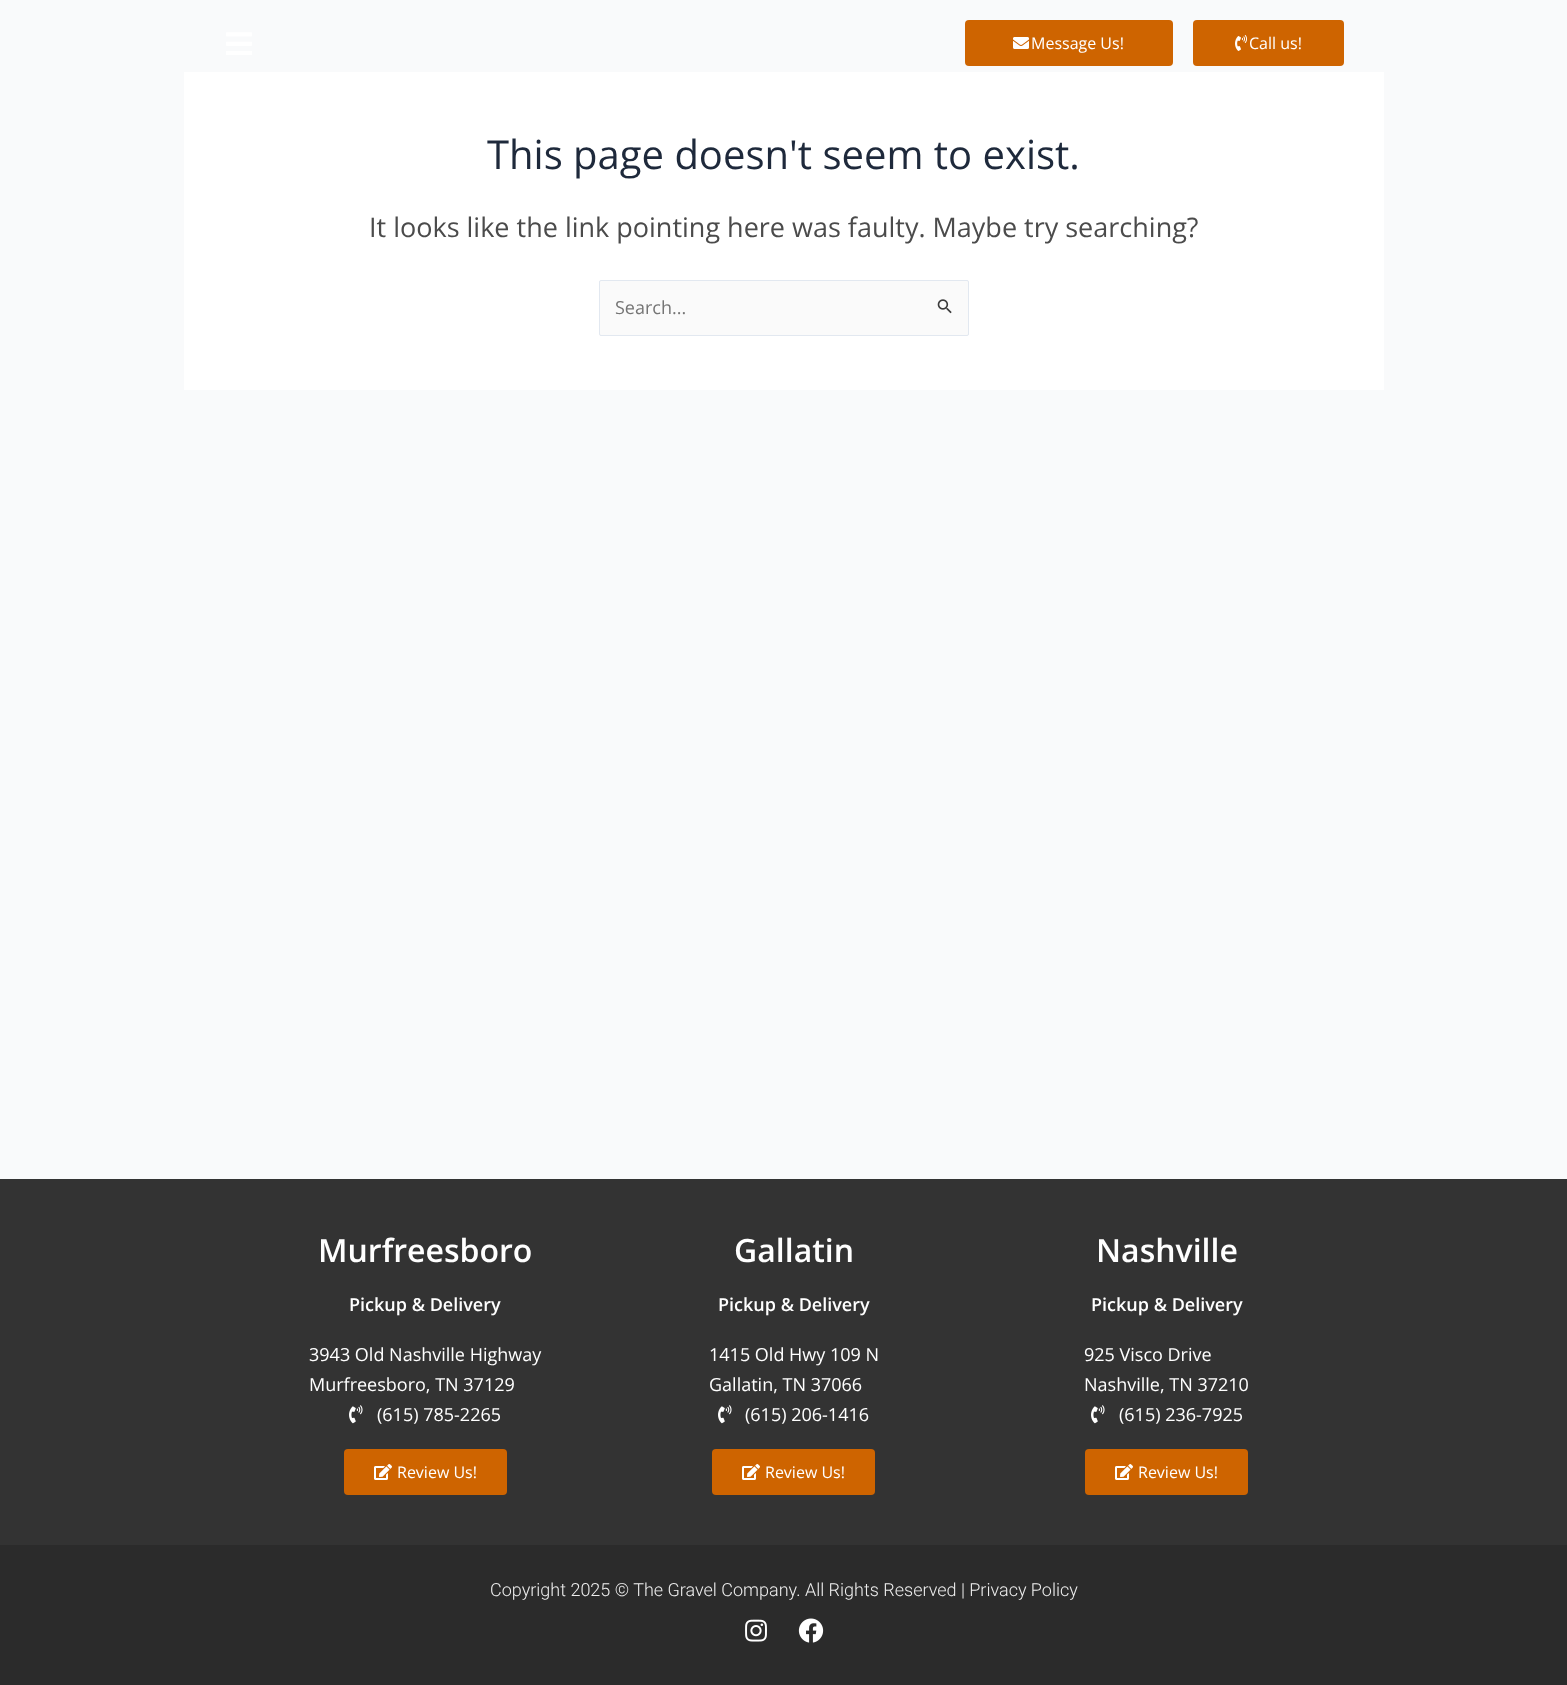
<svg xmlns="http://www.w3.org/2000/svg" xmlns:xlink="http://www.w3.org/1999/xlink" width="1567" height="1685" viewBox="0 0 1567 1685">
<style>
.cls-1{font:16px Open Sans;fill:#ffffff}
.cls-2{font:40px Open Sans;fill:#1e293b}
.cls-3{font:27px Open Sans;fill:#4b4b4b}
.cls-4{font:18px Open Sans;fill:#757575}
.cls-5{font:600 32px Open Sans;fill:#ffffff}
.cls-6{font:600 18px Open Sans;fill:#ffffff}
.cls-7{font:18px Open Sans;fill:#ffffff}
.cls-8{font:300 18px Roboto;fill:#eeeeee}
</style>
<rect width="100%" height="100%" fill="#f9fafb"/>
<image xlink:href="image0.png" x="226" y="32" width="26" height="23"/>
<rect fill="#ce6400" x="965" y="20" width="208" height="46" rx="4"/>
<image xlink:href="image1.png" x="1013" y="37" width="16" height="12"/>
<rect fill="#ce6400" x="1193" y="20" width="151" height="46" rx="4"/>
<image xlink:href="image2.png" x="1235" y="35" width="12" height="16"/>
<rect fill="#ffffff" x="184" y="72" width="1200" height="318"/>
<rect fill="#fafafa" stroke="#e2e8f0" x="599.5" y="280.5" width="369" height="55" rx="1.5"/>
<image xlink:href="image3.png" x="937" y="299" width="15" height="15"/>
<rect fill="#333333" x="0" y="1179" width="1567" height="366"/>
<image xlink:href="image4.png" x="349" y="1405" width="14" height="19"/>
<rect fill="#ce6400" x="344" y="1449" width="163" height="46" rx="4"/>
<image xlink:href="image5.png" x="374" y="1464" width="18" height="16"/>
<image xlink:href="image4.png" x="718" y="1405" width="14" height="19"/>
<rect fill="#ce6400" x="712" y="1449" width="163" height="46" rx="4"/>
<image xlink:href="image5.png" x="742" y="1464" width="18" height="16"/>
<image xlink:href="image4.png" x="1091" y="1405" width="14" height="19"/>
<rect fill="#ce6400" x="1085" y="1449" width="163" height="46" rx="4"/>
<image xlink:href="image5.png" x="1115" y="1464" width="18" height="16"/>
<rect fill="#2b2b2b" x="0" y="1545" width="1567" height="140"/>
<image xlink:href="image6.png" x="745" y="1619" width="22" height="23"/>
<image xlink:href="image7.png" x="798" y="1618" width="26" height="25"/>
<text class="cls-1" x="1031" y="49">Message Us!</text>
<text class="cls-1" x="1249" y="49">Call us!</text>
<text class="cls-2" x="487" y="169">This page doesn't seem to exist.</text>
<text class="cls-3" x="369" y="237">It looks like the link pointing here was faulty. Maybe try searching?</text>
<text class="cls-4" x="615" y="314">Search...</text>
<text class="cls-5" x="318" y="1262">Murfreesboro</text>
<text class="cls-6" x="349" y="1311">Pickup &amp; Delivery</text>
<text class="cls-7"><tspan x="309" y="1361">3943 Old Nashville Highway</tspan><tspan x="309" y="1391">Murfreesboro, TN 37129</tspan></text>
<text class="cls-7" x="377" y="1421">(615) 785-2265</text>
<text class="cls-1" x="397" y="1478">Review Us!</text>
<text class="cls-5" x="734" y="1262">Gallatin</text>
<text class="cls-6" x="718" y="1311">Pickup &amp; Delivery</text>
<text class="cls-7"><tspan x="709" y="1361">1415 Old Hwy 109 N</tspan><tspan x="709" y="1391">Gallatin, TN 37066</tspan></text>
<text class="cls-7" x="745" y="1421">(615) 206-1416</text>
<text class="cls-1" x="765" y="1478">Review Us!</text>
<text class="cls-5" x="1096" y="1262">Nashville</text>
<text class="cls-6" x="1091" y="1311">Pickup &amp; Delivery</text>
<text class="cls-7"><tspan x="1084" y="1361">925 Visco Drive</tspan><tspan x="1084" y="1391">Nashville, TN 37210</tspan></text>
<text class="cls-7" x="1119" y="1421">(615) 236-7925</text>
<text class="cls-1" x="1138" y="1478">Review Us!</text>
<text class="cls-8" x="490" y="1596">Copyright 2025 © The Gravel Company. All Rights Reserved | Privacy Policy</text>
</svg>
